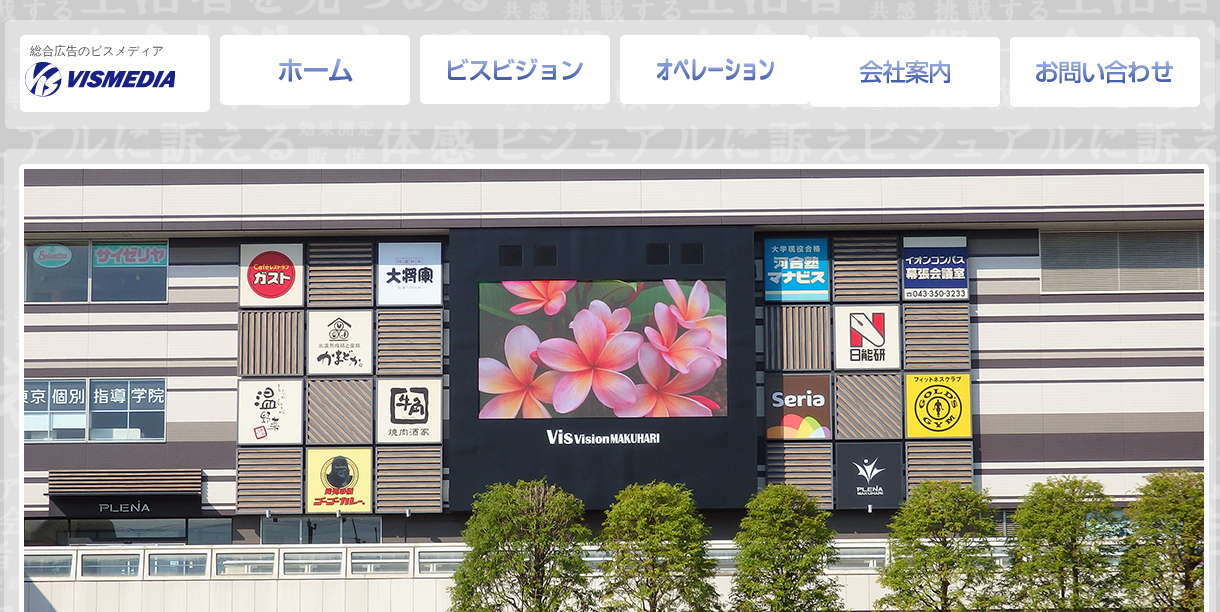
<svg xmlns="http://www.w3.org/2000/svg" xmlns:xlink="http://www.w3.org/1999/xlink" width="1220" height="612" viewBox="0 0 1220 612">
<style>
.cls-1{font:500 12px WenQuanYi Zen Hei;fill:#555555}
</style>
<rect width="100%" height="100%" fill="#ffffff"/>
<image xlink:href="image0.png" x="0" y="0" width="859" height="612"/>
<image xlink:href="image1.png" x="859" y="0" width="361" height="612"/>
<rect fill="#ffffff" fill-opacity="0.4" x="5" y="20" width="1210" height="109" rx="5"/>
<rect fill="#ffffff" x="20" y="35" width="190" height="77" rx="5"/>
<image xlink:href="image2.png" x="25" y="62" width="150" height="35"/>
<rect fill="#ffffff" x="220" y="35" width="190" height="70" rx="5"/>
<image xlink:href="image3.png" x="278" y="58" width="75" height="24"/>
<rect fill="#ffffff" x="420" y="35" width="190" height="69" rx="5"/>
<image xlink:href="image4.png" x="448" y="58" width="135" height="23"/>
<rect fill="#ffffff" x="620" y="35" width="190" height="69" rx="5"/>
<image xlink:href="image5.png" x="657" y="58" width="117" height="23"/>
<rect fill="#ffffff" x="810" y="37" width="190" height="70" rx="5"/>
<image xlink:href="image6.png" x="859" y="60" width="91" height="24"/>
<rect fill="#ffffff" x="1010" y="37" width="190" height="70" rx="5"/>
<image xlink:href="image7.png" x="1036" y="60" width="137" height="24"/>
<rect fill="#ffffff" fill-opacity="0.4" x="4" y="149" width="1212" height="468" rx="5"/>
<rect fill="#ffffff" x="19" y="164" width="1190" height="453" rx="5"/>
<image xlink:href="image8.png" x="24" y="169" width="1180" height="443"/>
<text class="cls-1" x="30" y="55">総合広告のビスメディア</text>
</svg>
